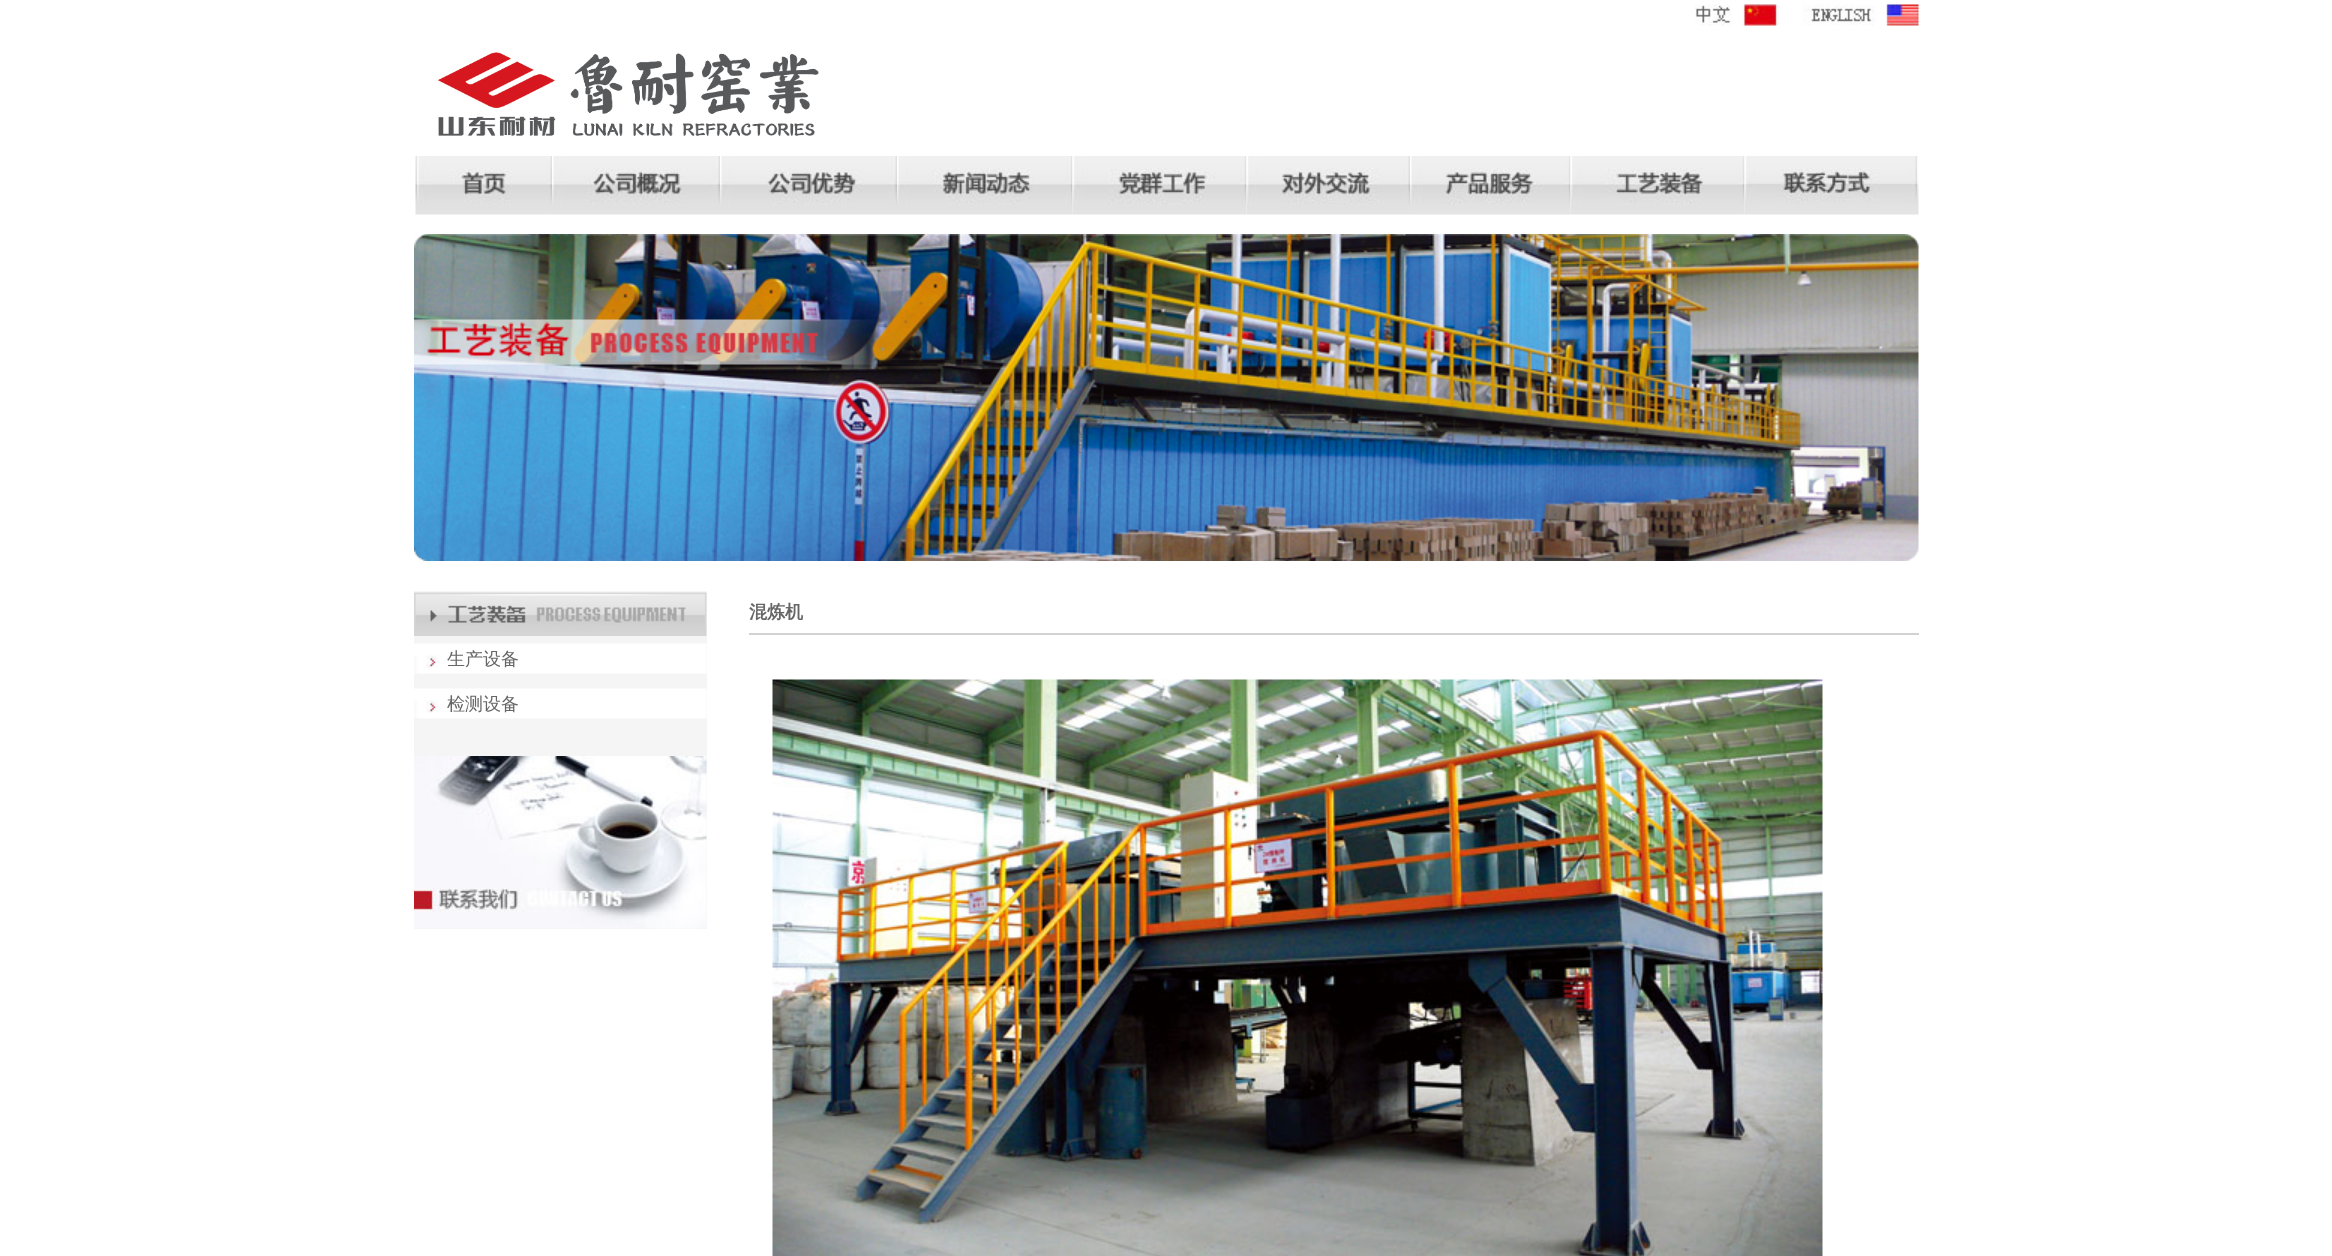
<svg xmlns="http://www.w3.org/2000/svg" xmlns:xlink="http://www.w3.org/1999/xlink" width="2332" height="1256" viewBox="0 0 2332 1256">
<style>
.cls-1{font:bold 18px WenQuanYi Zen Hei;fill:#666666}
.cls-2{font:500 18px WenQuanYi Zen Hei;fill:#666666}
</style>
<rect width="100%" height="100%" fill="#ffffff"/>
<image xlink:href="image0.png" x="1695" y="4" width="224" height="22"/>
<image xlink:href="image1.png" x="437" y="52" width="382" height="84"/>
<image xlink:href="image2.png" x="415" y="156" width="137" height="59"/>
<image xlink:href="image3.png" x="552" y="156" width="168" height="59"/>
<image xlink:href="image4.png" x="720" y="156" width="177" height="59"/>
<image xlink:href="image5.png" x="897" y="156" width="176" height="59"/>
<image xlink:href="image6.png" x="1072" y="156" width="175" height="59"/>
<image xlink:href="image7.png" x="1246" y="156" width="164" height="59"/>
<image xlink:href="image8.png" x="1410" y="156" width="161" height="59"/>
<image xlink:href="image9.png" x="1570" y="156" width="175" height="59"/>
<image xlink:href="image10.png" x="1744" y="156" width="175" height="59"/>
<image xlink:href="image11.png" x="414" y="234" width="1505" height="327"/>
<rect fill="#d2d2d2" x="749" y="633" width="1170" height="2"/>
<image xlink:href="image12.png" x="772" y="679" width="1051" height="577"/>
<rect fill="#f5f5f5" x="414" y="591" width="293" height="338"/>
<image xlink:href="image13.png" x="414" y="592" width="293" height="44"/>
<image xlink:href="image14.png" x="414" y="643" width="293" height="31"/>
<image xlink:href="image14.png" x="414" y="688" width="293" height="31"/>
<image xlink:href="image15.png" x="414" y="756" width="293" height="173"/>
<text class="cls-1" x="749" y="618">混炼机</text>
<text class="cls-2" x="447" y="665">生产设备</text>
<text class="cls-2" x="447" y="710">检测设备</text>
</svg>
